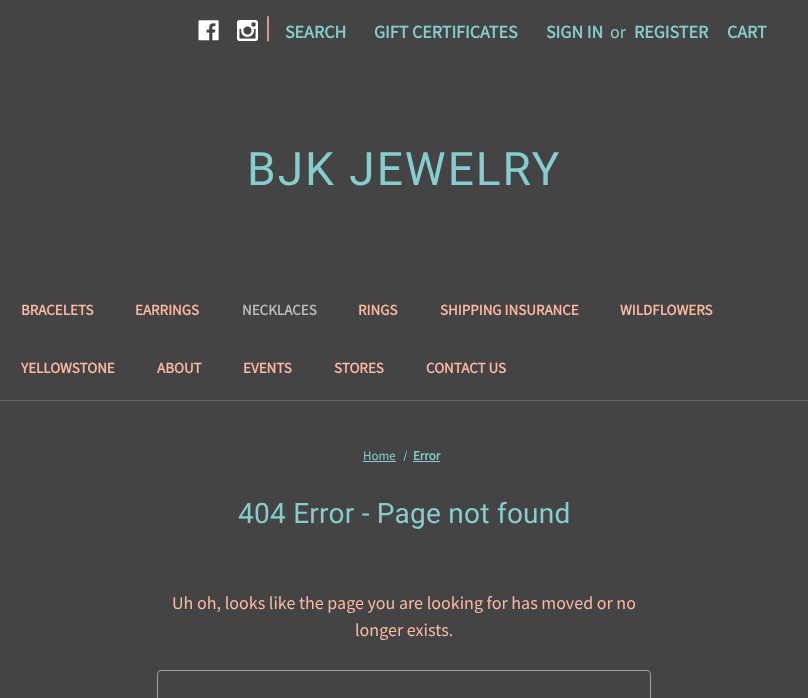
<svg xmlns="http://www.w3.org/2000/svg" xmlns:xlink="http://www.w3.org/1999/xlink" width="808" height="698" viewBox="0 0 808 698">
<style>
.cls-1{font:25px Source Sans Pro;fill:#fab9a3}
.cls-2{font:bold 18px Source Sans Pro;fill:#85cdcf}
.cls-3{font:18px Source Sans Pro;fill:#85cdcf}
.cls-4{font:46px Roboto;letter-spacing:2px;fill:#85cdcf}
.cls-5{font:bold 15px Source Sans Pro;fill:#fab9a3}
.cls-6{font:bold 15px Source Sans Pro;fill:#bbbbbb}
.cls-7{font:13px Source Sans Pro;fill:#85cdcf}
.cls-8{font:bold 13px Source Sans Pro;fill:#85cdcf}
.cls-9{font:28px Roboto;letter-spacing:0.25px;fill:#85cdcf}
.cls-10{font:18px Source Sans Pro;fill:#fab9a3}
</style>
<rect width="100%" height="100%" fill="#444444"/>
<rect fill="#666666" x="0" y="400" width="808" height="1"/>
<image xlink:href="image0.png" x="198" y="20" width="21" height="21"/>
<image xlink:href="image1.png" x="237" y="20" width="21" height="21"/>
<rect fill="#85cdcf" x="363" y="461" width="33" height="1"/>
<path fill="#85cdcf" d="M406.5 450.5L407 451L404.5 461L403.5 460.5Z"/>
<rect fill="#85cdcf" x="413" y="461" width="27" height="1"/>
<rect fill="none" stroke="#9f9f9f" x="157.5" y="670.5" width="493" height="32" rx="3.5"/>
<text class="cls-1" x="265" y="35">|</text>
<text class="cls-2" x="285" y="38">SEARCH</text>
<text class="cls-2" x="374" y="38">GIFT CERTIFICATES</text>
<text class="cls-2" x="546" y="38">SIGN IN</text>
<text class="cls-3" x="610" y="38">or</text>
<text class="cls-2" x="634" y="38">REGISTER</text>
<text class="cls-2" x="727" y="38">CART</text>
<text class="cls-4" x="247" y="185">BJK JEWELRY</text>
<text class="cls-5" x="21" y="315">BRACELETS</text>
<text class="cls-5" x="135" y="315">EARRINGS</text>
<text class="cls-6" x="242" y="315">NECKLACES</text>
<text class="cls-5" x="358" y="315">RINGS</text>
<text class="cls-5" x="440" y="315">SHIPPING INSURANCE</text>
<text class="cls-5" x="620" y="315">WILDFLOWERS</text>
<text class="cls-5" x="21" y="373">YELLOWSTONE</text>
<text class="cls-5" x="157" y="373">ABOUT</text>
<text class="cls-5" x="243" y="373">EVENTS</text>
<text class="cls-5" x="334" y="373">STORES</text>
<text class="cls-5" x="426" y="373">CONTACT US</text>
<text class="cls-7" x="363" y="460">Home</text>
<text class="cls-8" x="413" y="460">Error</text>
<text class="cls-9" x="238" y="523">404 Error - Page not found</text>
<text class="cls-10" x="172" y="609">Uh oh, looks like the page you are looking for has moved or no</text>
<text class="cls-10" x="355" y="636">longer exists.</text>
</svg>
